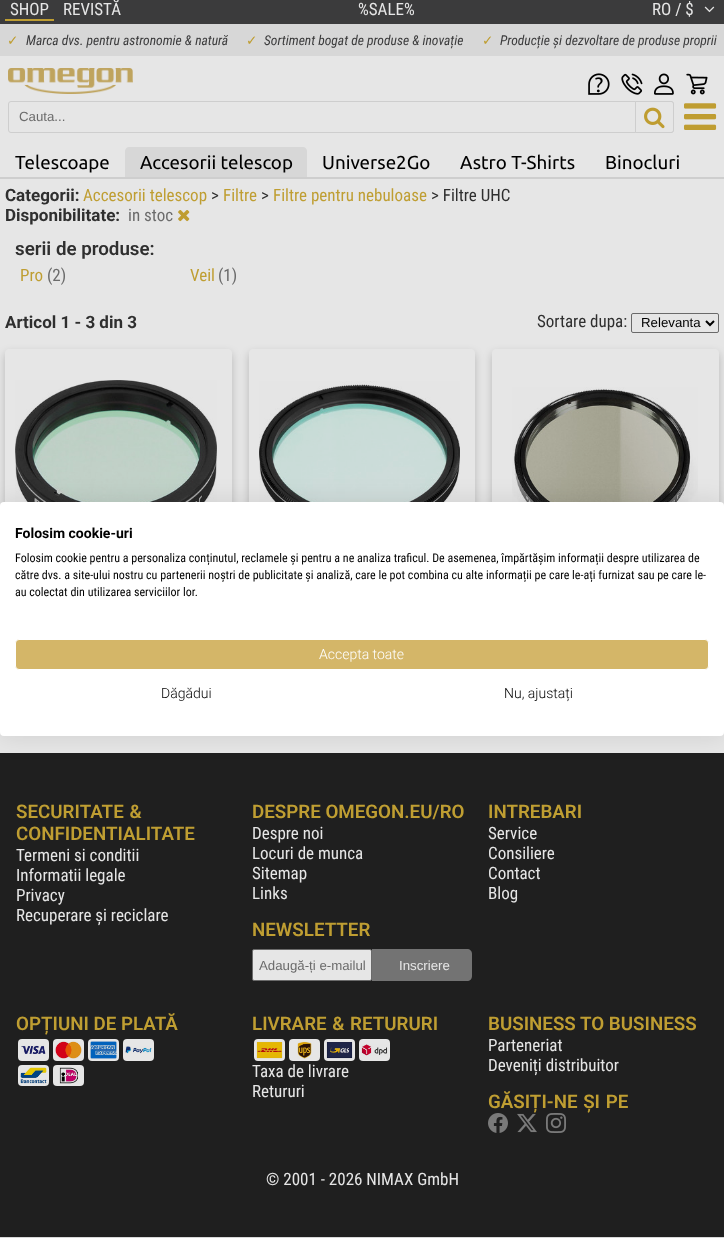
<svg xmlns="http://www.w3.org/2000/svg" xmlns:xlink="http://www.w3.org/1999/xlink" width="724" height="1238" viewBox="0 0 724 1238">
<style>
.cls-1{font:17px Roboto Condensed;fill:#e6e6e6}
.cls-2{font:13.6px DejaVu Sans;fill:#bf9e32}
.cls-3{font:italic 13.6px Roboto Condensed;fill:#3b3b3c}
.cls-4{font:13.25px Liberation Sans;fill:#6b6b6b}
.cls-5{font:18.75px Ubuntu;fill:#000000}
.cls-6{font:bold 17px Roboto;fill:#2f2f2f}
.cls-7{font:17px Roboto Condensed;fill:#bf9e32}
.cls-8{font:17px Roboto Condensed;fill:#2f2f2f}
.cls-9{font:17px Roboto Condensed;fill:#6b6b6b}
.cls-10{font:600 18.75px Roboto;fill:#2f2f2f}
.cls-11{font:13.25px Liberation Sans;fill:#000000}
.cls-12{font:600 18.75px Roboto;fill:#bf9e32}
.cls-13{font:13.25px Liberation Sans;fill:#e6e6e6}
.cls-14{font:bold 14px Roboto;fill:#000000}
.cls-15{font:12px Roboto Condensed;fill:#000000}
.cls-16{font:300 14px Roboto;fill:#ffffff}
.cls-17{font:300 14px Roboto;fill:#000000}
</style>
<defs>
<clipPath id="clip1"><path d="M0 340H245V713H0ZM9 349H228C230 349 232 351 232 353V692C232 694 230 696 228 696H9C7 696 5 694 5 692V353C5 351 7 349 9 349Z" clip-rule="evenodd"/></clipPath>
<clipPath id="clip2"><path d="M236 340H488V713H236ZM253 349H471C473 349 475 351 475 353V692C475 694 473 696 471 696H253C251 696 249 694 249 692V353C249 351 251 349 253 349Z" clip-rule="evenodd"/></clipPath>
<clipPath id="clip3"><path d="M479 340H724V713H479ZM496 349H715C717 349 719 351 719 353V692C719 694 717 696 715 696H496C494 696 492 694 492 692V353C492 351 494 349 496 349Z" clip-rule="evenodd"/></clipPath>
</defs>
<rect width="100%" height="100%" fill="#e6e6e6"/>
<rect fill="#3b3b3c" x="0" y="0" width="724" height="24"/>
<rect fill="#bf9e32" x="5" y="19" width="49" height="2"/>
<image xlink:href="image0.png" x="704" y="6" width="11" height="7"/>
<rect fill="#d7d7d7" x="0" y="24" width="724" height="32"/>
<image xlink:href="image1.png" x="8" y="68" width="125" height="26"/>
<image xlink:href="image2.png" x="588" y="73" width="22" height="22"/>
<image xlink:href="image3.png" x="621" y="73" width="22" height="22"/>
<image xlink:href="image4.png" x="654" y="73" width="20" height="22"/>
<image xlink:href="image5.png" x="686" y="73" width="22" height="22"/>
<rect fill="none" stroke="#cecece" x="8.5" y="101.5" width="665" height="31" rx="2.5"/>
<path fill="#e6e6e6" stroke="#cecece" d="M635.5 101.5H671C672.5 101.5 673.5 102.5 673.5 104V130C673.5 131.5 672.5 132.5 671 132.5H635.5Z"/>
<image xlink:href="image6.png" x="644" y="107" width="21" height="22"/>
<image xlink:href="image7.png" x="684" y="103" width="33" height="27"/>
<path fill="#d7d7d7" d="M129 147H303C305 147 307 149 307 151V177H125V151C125 149 127 147 129 147Z"/>
<rect fill="#cecece" x="0" y="177" width="724" height="2"/>
<image xlink:href="image8.png" x="178" y="210" width="12" height="12"/>
<rect fill="none" stroke="#6a6a6a" x="631.5" y="313.5" width="87" height="19" rx="1.5"/>
<path fill="none" stroke="#000000" stroke-width="2" d="M706 321L710 325L714 321"/>
<g clip-path="url(#clip1)">
<rect fill="#000000" fill-opacity="0.2" filter="blur(4px)" x="5" y="353" width="227" height="347" rx="4"/>
</g>
<image xlink:href="image9.png" x="15" y="380" width="202" height="122"/>
<g clip-path="url(#clip2)">
<rect fill="#000000" fill-opacity="0.2" filter="blur(4px)" x="249" y="353" width="226" height="347" rx="4"/>
</g>
<image xlink:href="image10.png" x="259" y="381" width="201" height="121"/>
<g clip-path="url(#clip3)">
<rect fill="#000000" fill-opacity="0.2" filter="blur(4px)" x="492" y="353" width="227" height="347" rx="4"/>
</g>
<image xlink:href="image11.png" x="512" y="387" width="186" height="115"/>
<rect fill="#1f1f1f" x="0" y="753" width="724" height="484"/>
<rect fill="#d7d7d7" x="0" y="1237" width="724" height="1"/>
<rect fill="#e6e6e6" stroke="#6a6a6a" x="252.5" y="949.5" width="119" height="31" rx="1.5"/>
<path fill="#737373" d="M372 949H467C470 949 472 951 472 954V976C472 979 470 981 467 981H372Z"/>
<rect fill="#e6e6e6" x="18" y="1039" width="31" height="22" rx="4"/>
<image xlink:href="image12.png" x="21" y="1045" width="25" height="9"/>
<rect fill="#e6e6e6" x="53" y="1039" width="31" height="22" rx="4"/>
<image xlink:href="image13.png" x="55" y="1041" width="27" height="18"/>
<rect fill="#e6e6e6" x="88" y="1039" width="31" height="22" rx="4"/>
<image xlink:href="image14.png" x="90" y="1041" width="27" height="18"/>
<rect fill="#e6e6e6" x="123" y="1039" width="31" height="22" rx="4"/>
<image xlink:href="image15.png" x="125" y="1046" width="27" height="8"/>
<rect fill="#e6e6e6" x="18" y="1065" width="31" height="21" rx="4"/>
<image xlink:href="image16.png" x="20" y="1067" width="27" height="17"/>
<rect fill="#e6e6e6" x="53" y="1065" width="31" height="21" rx="4"/>
<image xlink:href="image17.png" x="59" y="1067" width="19" height="17"/>
<rect fill="#e6e6e6" x="254" y="1039" width="31" height="22" rx="4"/>
<image xlink:href="image18.png" x="256" y="1041" width="27" height="18"/>
<rect fill="#e6e6e6" x="289" y="1039" width="31" height="22" rx="4"/>
<image xlink:href="image19.png" x="297" y="1041" width="15" height="18"/>
<rect fill="#e6e6e6" x="324" y="1039" width="31" height="22" rx="4"/>
<image xlink:href="image20.png" x="326" y="1042" width="27" height="17"/>
<rect fill="#e6e6e6" x="359" y="1039" width="31" height="22" rx="4"/>
<image xlink:href="image21.png" x="361" y="1044" width="27" height="12"/>
<image xlink:href="image22.png" x="488" y="1113" width="20" height="20"/>
<image xlink:href="image23.png" x="517" y="1113" width="20" height="20"/>
<image xlink:href="image24.png" x="546" y="1113" width="20" height="20"/>
<rect fill="#000000" fill-opacity="0.1" filter="blur(12px)" x="0" y="502" width="724" height="234" rx="4"/>
<rect fill="#ffffff" x="0" y="502" width="724" height="234" rx="4"/>
<rect fill="#d4b668" stroke="#ffffff" x="15.5" y="639.5" width="693" height="30" rx="3.5"/>
<text class="cls-1" x="10" y="15">SHOP</text>
<text class="cls-1" x="63" y="15">REVISTĂ</text>
<text class="cls-1" x="358" y="15">%SALE%</text>
<text class="cls-1" x="652" y="15">RO / $</text>
<text class="cls-2" x="7" y="45">✓</text>
<text class="cls-3" x="26" y="45">Marca dvs. pentru astronomie &amp; natură</text>
<text class="cls-2" x="246" y="45">✓</text>
<text class="cls-3" x="264" y="45">Sortiment bogat de produse &amp; inovație</text>
<text class="cls-2" x="482" y="45">✓</text>
<text class="cls-3" x="500" y="45">Producție și dezvoltare de produse proprii</text>
<text class="cls-4" x="19" y="121">Cauta...</text>
<text class="cls-5" x="15" y="169">Telescoape</text>
<text class="cls-5" x="140" y="169">Accesorii telescop</text>
<text class="cls-5" x="322" y="169">Universe2Go</text>
<text class="cls-5" x="460" y="169">Astro T-Shirts</text>
<text class="cls-5" x="605" y="169">Binocluri</text>
<text class="cls-6" x="5" y="201">Categorii:</text>
<text class="cls-7" x="83" y="201">Accesorii telescop</text>
<text class="cls-8" x="211" y="201">&gt;</text>
<text class="cls-7" x="223" y="201">Filtre</text>
<text class="cls-8" x="261" y="201">&gt;</text>
<text class="cls-7" x="273" y="201">Filtre pentru nebuloase</text>
<text class="cls-8" x="431" y="201">&gt; Filtre UHC</text>
<text class="cls-6" x="5" y="221">Disponibilitate:</text>
<text class="cls-9" x="128" y="221">in stoc</text>
<text class="cls-10" x="15" y="255">serii de produse:</text>
<text class="cls-7" x="20" y="281">Pro</text>
<text class="cls-9" x="47" y="281">(2)</text>
<text class="cls-7" x="190" y="281">Veil</text>
<text class="cls-9" x="218" y="281">(1)</text>
<text class="cls-6" x="5" y="328">Articol 1 - 3 din 3</text>
<text class="cls-8" x="537" y="327">Sortare dupa:</text>
<text class="cls-11" x="641" y="327">Relevanta</text>
<text class="cls-12"><tspan x="16" y="818" word-spacing="1">SECURITATE &amp;</tspan><tspan x="16" y="840">CONFIDENTIALITATE</tspan></text>
<text class="cls-1"><tspan x="16" y="861">Termeni si conditii</tspan><tspan x="16" y="881">Informatii legale</tspan><tspan x="16" y="901">Privacy</tspan><tspan x="16" y="921">Recuperare și reciclare</tspan></text>
<text class="cls-12" x="252" y="818">DESPRE OMEGON.EU/RO</text>
<text class="cls-1"><tspan x="252" y="839">Despre noi</tspan><tspan x="252" y="859">Locuri de munca</tspan><tspan x="252" y="879">Sitemap</tspan><tspan x="252" y="899">Links</tspan></text>
<text class="cls-12" x="488" y="818">INTREBARI</text>
<text class="cls-1"><tspan x="488" y="839">Service</tspan><tspan x="488" y="859">Consiliere</tspan><tspan x="488" y="879">Contact</tspan><tspan x="488" y="899">Blog</tspan></text>
<text class="cls-12" x="252" y="936">NEWSLETTER</text>
<text class="cls-4" x="259" y="970">Adaugă-ți e-mailul</text>
<text class="cls-13" x="399" y="970">Inscriere</text>
<text class="cls-12" x="16" y="1030">OPȚIUNI DE PLATĂ</text>
<text class="cls-12" x="252" y="1030" word-spacing="1">LIVRARE &amp; RETURURI</text>
<text class="cls-1"><tspan x="252" y="1077">Taxa de livrare</tspan><tspan x="252" y="1097">Retururi</tspan></text>
<text class="cls-12" x="488" y="1030">BUSINESS TO BUSINESS</text>
<text class="cls-1"><tspan x="488" y="1051">Parteneriat</tspan><tspan x="488" y="1071">Deveniți distribuitor</tspan></text>
<text class="cls-12" x="488" y="1108" word-spacing="1">GĂSIȚI-NE ȘI PE</text>
<text class="cls-1" x="266" y="1185">© 2001 - 2026 NIMAX GmbH</text>
<text class="cls-14" x="15" y="538">Folosim cookie-uri</text>
<text class="cls-15"><tspan x="15" y="562">Folosim cookie pentru a personaliza conținutul, reclamele și pentru a ne analiza traficul. De asemenea, împărtășim informații despre utilizarea de</tspan><tspan x="15" y="579">către dvs. a site-ului nostru cu partenerii noștri de publicitate și analiză, care le pot combina cu alte informații pe care le-ați furnizat sau pe care le-</tspan><tspan x="15" y="596">au colectat din utilizarea serviciilor lor.</tspan></text>
<text class="cls-16" x="319" y="659">Accepta toate</text>
<text class="cls-17" x="161" y="698">Dăgădui</text>
<text class="cls-17" x="504" y="698">Nu, ajustați</text>
</svg>
